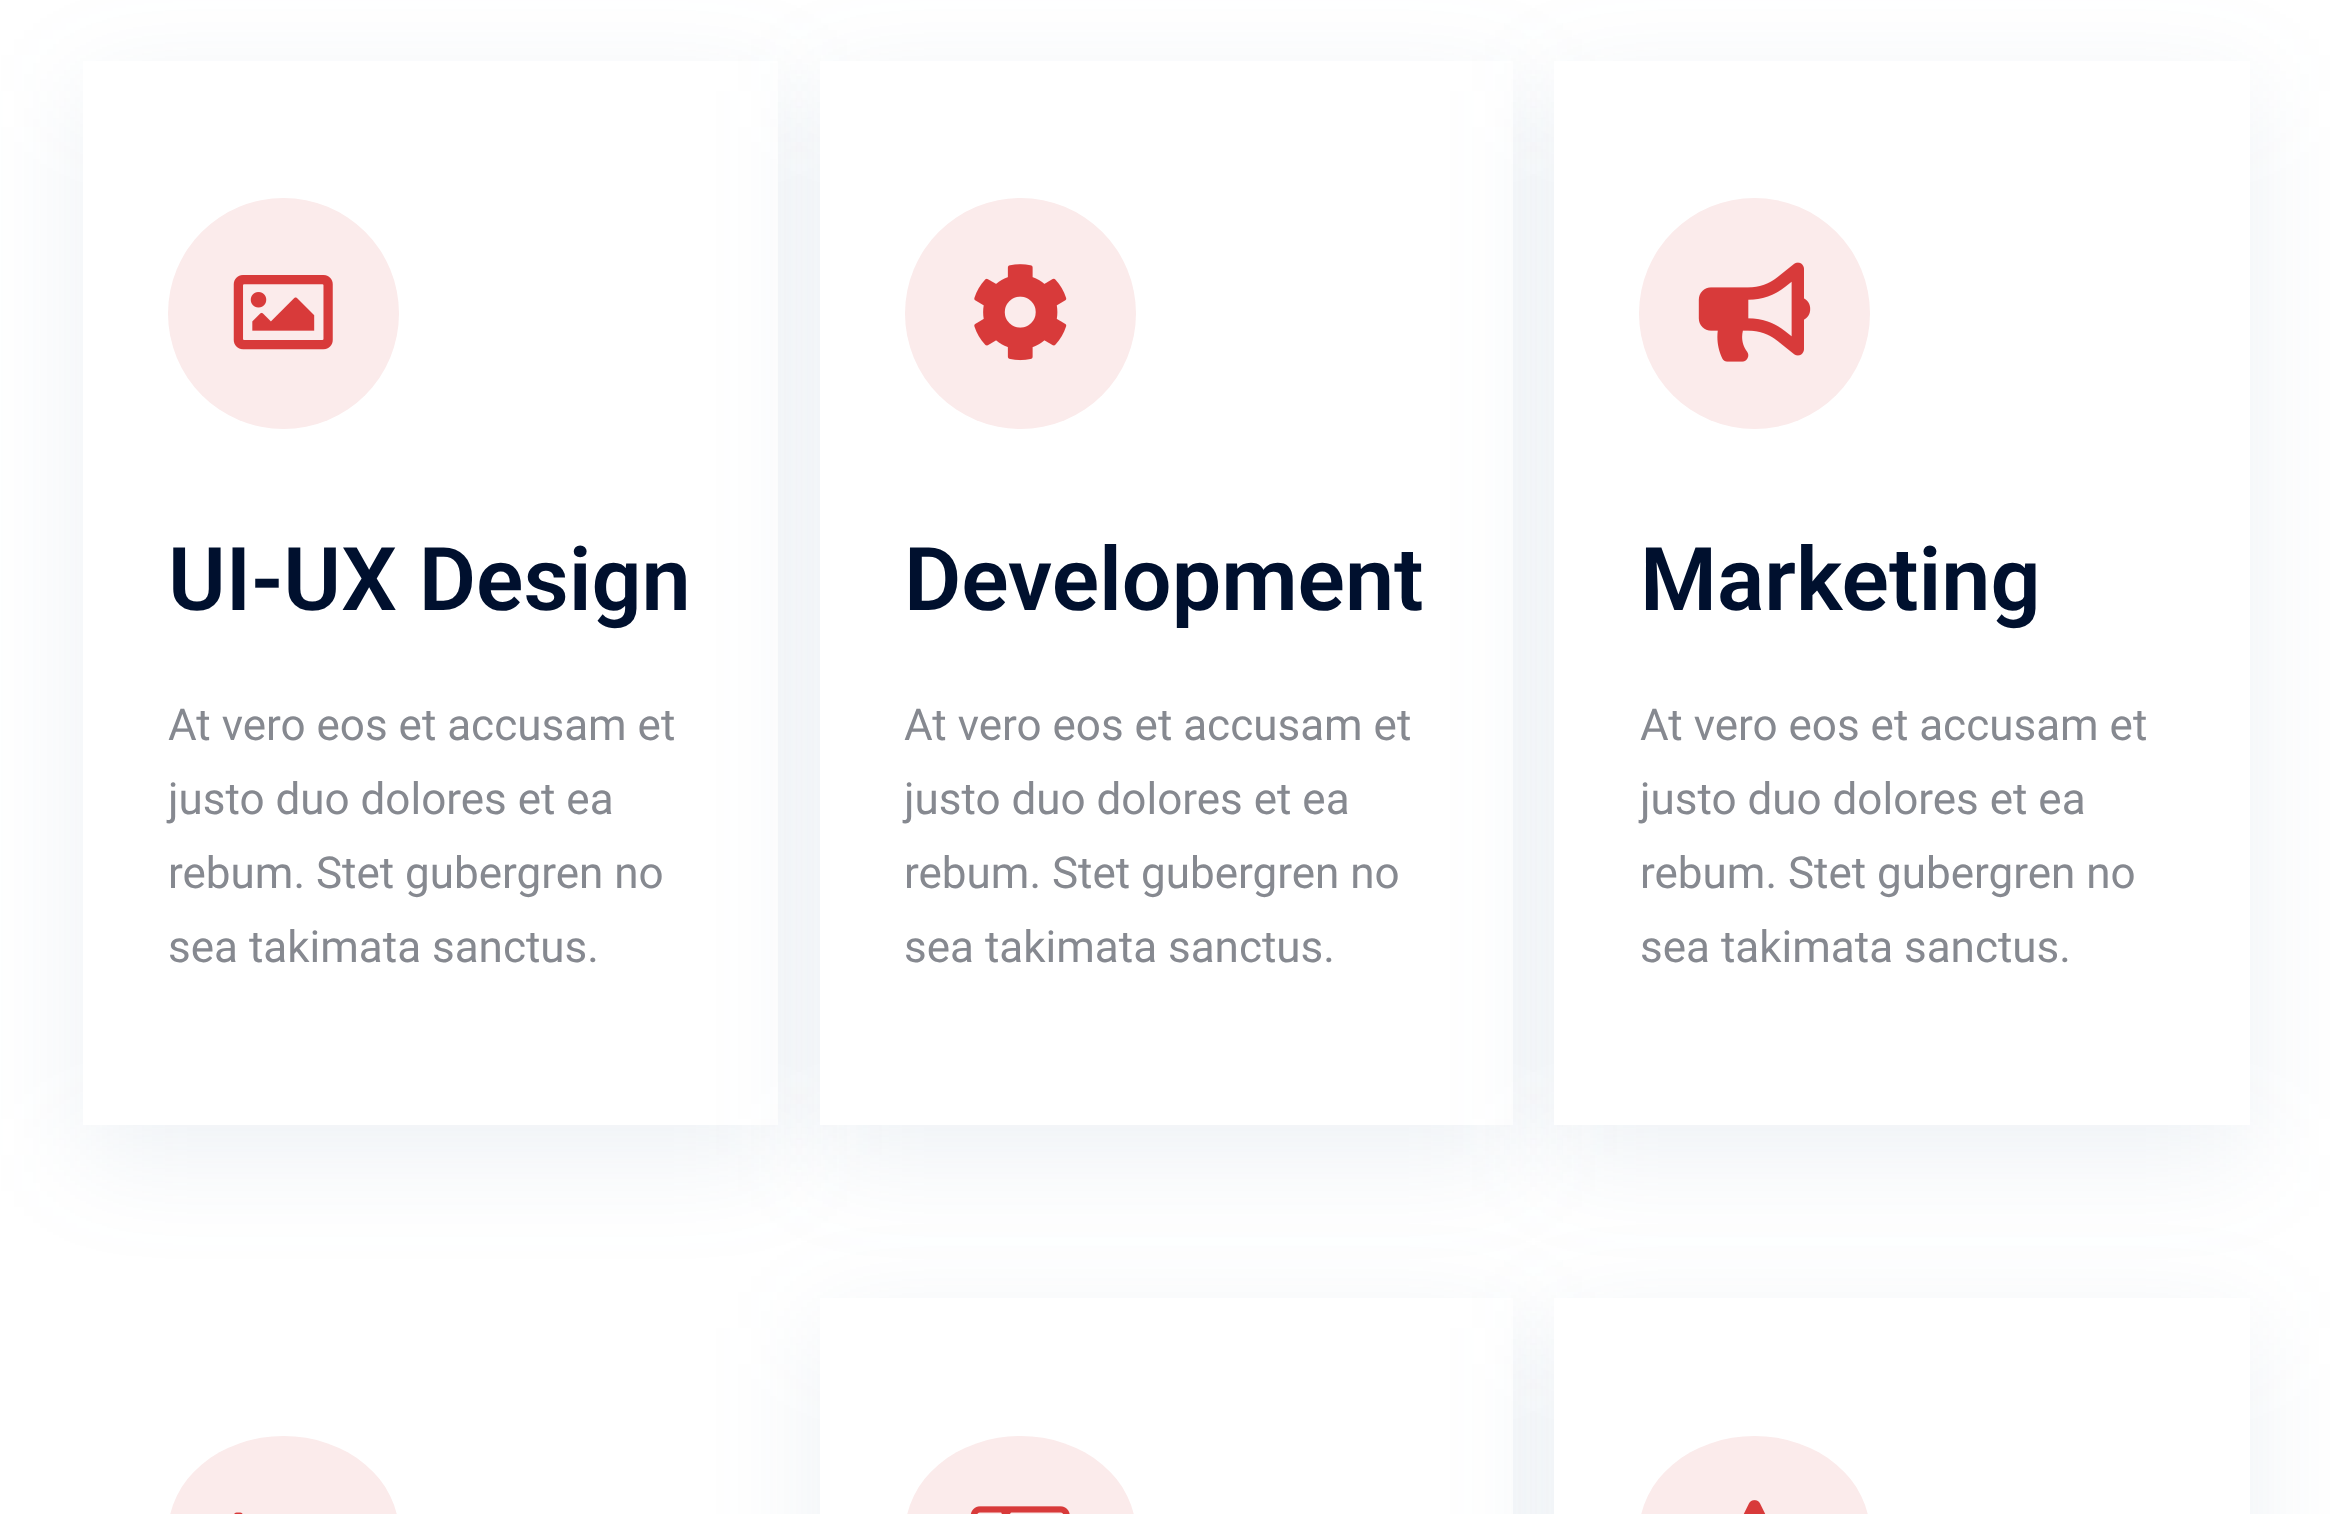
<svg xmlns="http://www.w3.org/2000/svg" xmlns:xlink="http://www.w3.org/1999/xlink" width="2330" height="1514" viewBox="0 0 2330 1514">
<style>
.cls-1{font:600 88px Roboto;fill:#00102e}
.cls-2{font:44px Roboto;fill:#868990}
</style>
<rect width="100%" height="100%" fill="#ffffff"/>
<rect fill="#4f769d" fill-opacity="0.1" filter="blur(55px)" x="83" y="91" width="695" height="1064"/>
<rect fill="#ffffff" x="83" y="61" width="695" height="1064"/>
<circle fill="#fbebeb" cx="283.5" cy="313.5" r="115.5"/>
<image xlink:href="image0.png" x="233" y="275" width="100" height="75"/>
<rect fill="#4f769d" fill-opacity="0.1" filter="blur(55px)" x="820" y="91" width="693" height="1064"/>
<rect fill="#ffffff" x="820" y="61" width="693" height="1064"/>
<circle fill="#fbebeb" cx="1020.5" cy="313.5" r="115.5"/>
<image xlink:href="image1.png" x="974" y="264" width="93" height="97"/>
<rect fill="#4f769d" fill-opacity="0.1" filter="blur(55px)" x="1554" y="91" width="696" height="1064"/>
<rect fill="#ffffff" x="1554" y="61" width="696" height="1064"/>
<circle fill="#fbebeb" cx="1754.5" cy="313.5" r="115.5"/>
<image xlink:href="image2.png" x="1698" y="262" width="113" height="100"/>
<rect fill="#fbebeb" x="168" y="1436" width="231" height="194" rx="115.5"/>
<image xlink:href="image3.png" x="234" y="1512" width="9" height="2"/>
<rect fill="#4f769d" fill-opacity="0.1" filter="blur(55px)" x="820" y="1328" width="693" height="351"/>
<rect fill="#ffffff" x="820" y="1298" width="693" height="216"/>
<rect fill="#fbebeb" x="905" y="1436" width="231" height="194" rx="115.5"/>
<image xlink:href="image4.png" x="970" y="1506" width="100" height="8"/>
<rect fill="#4f769d" fill-opacity="0.1" filter="blur(55px)" x="1554" y="1328" width="696" height="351"/>
<rect fill="#ffffff" x="1554" y="1298" width="696" height="216"/>
<rect fill="#fbebeb" x="1639" y="1436" width="231" height="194" rx="115.5"/>
<image xlink:href="image5.png" x="1743" y="1500" width="23" height="14"/>
<text class="cls-1" x="168" y="610">UI-UX Design</text>
<text class="cls-2"><tspan x="168" y="740">At vero eos et accusam et</tspan><tspan x="168" y="814">justo duo dolores et ea</tspan><tspan x="168" y="888">rebum. Stet gubergren no</tspan><tspan x="168" y="962">sea takimata sanctus.</tspan></text>
<text class="cls-1" x="904" y="610">Development</text>
<text class="cls-2"><tspan x="904" y="740">At vero eos et accusam et</tspan><tspan x="904" y="814">justo duo dolores et ea</tspan><tspan x="904" y="888">rebum. Stet gubergren no</tspan><tspan x="904" y="962">sea takimata sanctus.</tspan></text>
<text class="cls-1" x="1640" y="610">Marketing</text>
<text class="cls-2"><tspan x="1640" y="740">At vero eos et accusam et</tspan><tspan x="1640" y="814">justo duo dolores et ea</tspan><tspan x="1640" y="888">rebum. Stet gubergren no</tspan><tspan x="1640" y="962">sea takimata sanctus.</tspan></text>
</svg>
